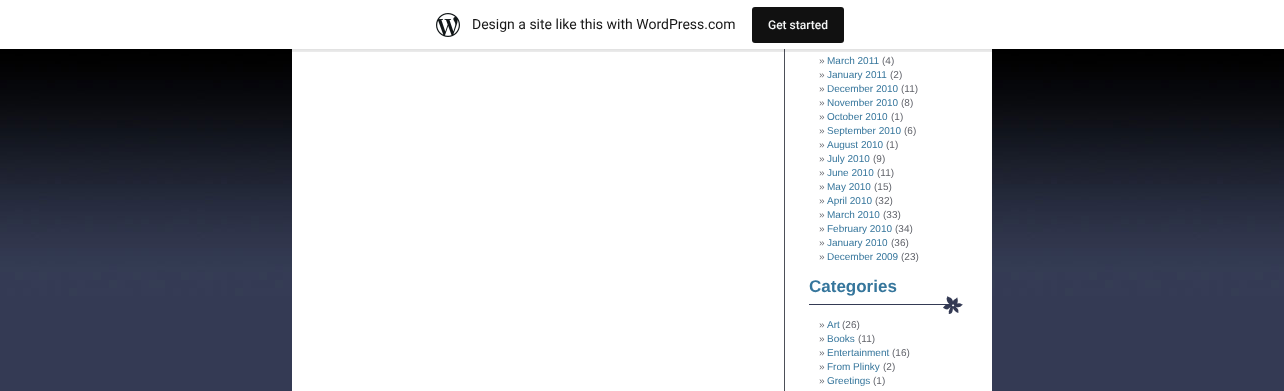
<svg xmlns="http://www.w3.org/2000/svg" xmlns:xlink="http://www.w3.org/1999/xlink" width="1284" height="391" viewBox="0 0 1284 391">
<style>
.cls-1{font:14px Roboto;fill:#171717}
.cls-2{font:500 12px Roboto;fill:#f6f7f7}
.cls-3{font:10px Liberation Sans;fill:#61636a}
.cls-4{font:10px Liberation Sans;fill:#36769c}
.cls-5{font:bold 17px Liberation Sans;fill:#36769c}
</style>
<rect width="100%" height="100%" fill="#ffffff"/>
<image xlink:href="image0.png" x="0" y="49" width="1284" height="342"/>
<rect fill="#ffffff" x="292" y="49" width="700" height="342"/>
<rect fill="#4c4f58" x="784" y="49" width="1" height="342"/>
<rect fill="#000000" fill-opacity="0.05" filter="blur(1px)" x="0" y="1" width="1284" height="49"/>
<path fill="#000000" fill-opacity="0.08" d="M1 49V52H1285V3H1284V49Z"/>
<rect fill="#ffffff" x="0" y="0" width="1284" height="49"/>
<image xlink:href="image1.png" x="436" y="13" width="24" height="24"/>
<rect fill="#111111" x="752" y="7" width="92" height="36" rx="3"/>
<image xlink:href="image2.png" x="809" y="296" width="154" height="18"/>
<text class="cls-1" x="472" y="29">Design a site like this with WordPress.com</text>
<text class="cls-2" x="768" y="29">Get started</text>
<text class="cls-3" x="819" y="64">»</text>
<text class="cls-4" x="827" y="64">March 2011</text>
<text class="cls-3" x="882" y="64">(4)</text>
<text class="cls-3" x="819" y="78">»</text>
<text class="cls-4" x="827" y="78">January 2011</text>
<text class="cls-3" x="890" y="78">(2)</text>
<text class="cls-3" x="819" y="92">»</text>
<text class="cls-4" x="827" y="92">December 2010</text>
<text class="cls-3" x="901" y="92">(11)</text>
<text class="cls-3" x="819" y="106">»</text>
<text class="cls-4" x="827" y="106">November 2010</text>
<text class="cls-3" x="901" y="106">(8)</text>
<text class="cls-3" x="819" y="120">»</text>
<text class="cls-4" x="827" y="120">October 2010</text>
<text class="cls-3" x="891" y="120">(1)</text>
<text class="cls-3" x="819" y="134">»</text>
<text class="cls-4" x="827" y="134">September 2010</text>
<text class="cls-3" x="904" y="134">(6)</text>
<text class="cls-3" x="819" y="148">»</text>
<text class="cls-4" x="827" y="148">August 2010</text>
<text class="cls-3" x="886" y="148">(1)</text>
<text class="cls-3" x="819" y="162">»</text>
<text class="cls-4" x="827" y="162">July 2010</text>
<text class="cls-3" x="873" y="162">(9)</text>
<text class="cls-3" x="819" y="176">»</text>
<text class="cls-4" x="827" y="176">June 2010</text>
<text class="cls-3" x="877" y="176">(11)</text>
<text class="cls-3" x="819" y="190">»</text>
<text class="cls-4" x="827" y="190">May 2010</text>
<text class="cls-3" x="874" y="190">(15)</text>
<text class="cls-3" x="819" y="204">»</text>
<text class="cls-4" x="827" y="204">April 2010</text>
<text class="cls-3" x="875" y="204">(32)</text>
<text class="cls-3" x="819" y="218">»</text>
<text class="cls-4" x="827" y="218">March 2010</text>
<text class="cls-3" x="883" y="218">(33)</text>
<text class="cls-3" x="819" y="232">»</text>
<text class="cls-4" x="827" y="232">February 2010</text>
<text class="cls-3" x="895" y="232">(34)</text>
<text class="cls-3" x="819" y="246">»</text>
<text class="cls-4" x="827" y="246">January 2010</text>
<text class="cls-3" x="891" y="246">(36)</text>
<text class="cls-3" x="819" y="260">»</text>
<text class="cls-4" x="827" y="260">December 2009</text>
<text class="cls-3" x="901" y="260">(23)</text>
<text class="cls-5" x="809" y="292">Categories</text>
<text class="cls-3" x="819" y="328">»</text>
<text class="cls-4" x="827" y="328">Art</text>
<text class="cls-3" x="842" y="328">(26)</text>
<text class="cls-3" x="819" y="342">»</text>
<text class="cls-4" x="827" y="342">Books</text>
<text class="cls-3" x="858" y="342">(11)</text>
<text class="cls-3" x="819" y="356">»</text>
<text class="cls-4" x="827" y="356">Entertainment</text>
<text class="cls-3" x="892" y="356">(16)</text>
<text class="cls-3" x="819" y="370">»</text>
<text class="cls-4" x="827" y="370">From Plinky</text>
<text class="cls-3" x="883" y="370">(2)</text>
<text class="cls-3" x="819" y="384">»</text>
<text class="cls-4" x="827" y="384">Greetings</text>
<text class="cls-3" x="873" y="384">(1)</text>
</svg>
